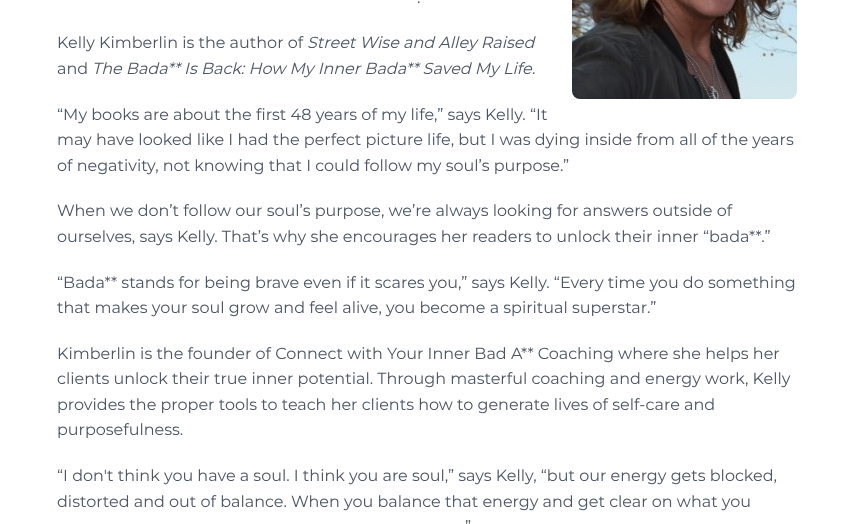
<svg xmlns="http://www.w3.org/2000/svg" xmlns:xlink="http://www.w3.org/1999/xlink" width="854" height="524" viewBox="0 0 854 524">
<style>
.cls-1{font:16px Montserrat;fill:#4b5563}
.cls-2{font:italic 16px Montserrat;fill:#4b5563}
</style>
<rect width="100%" height="100%" fill="#ffffff"/>
<image xlink:href="image0.png" x="572" y="0" width="225" height="99"/>
<text class="cls-1" x="417" y="3">.</text>
<text class="cls-1" x="57" y="48">Kelly Kimberlin is the author of</text>
<text class="cls-2" x="307" y="48">Street Wise and Alley Raised</text>
<text class="cls-1" x="57" y="74">and</text>
<text class="cls-2" x="92" y="74">The Bada** Is Back: How My Inner Bada** Saved My Life.</text>
<text class="cls-1"><tspan x="57" y="120">“My books are about the first 48 years of my life,” says Kelly. “It</tspan><tspan x="57" y="145">may have looked like I had the perfect picture life, but I was dying inside from all of the years</tspan><tspan x="57" y="171">of negativity, not knowing that I could follow my soul’s purpose.”</tspan></text>
<text class="cls-1"><tspan x="57" y="216">When we don’t follow our soul’s purpose, we’re always looking for answers outside of</tspan><tspan x="57" y="242">ourselves, says Kelly. That’s why she encourages her readers to unlock their inner “bada**.”</tspan></text>
<text class="cls-1"><tspan x="57" y="288">“Bada** stands for being brave even if it scares you,” says Kelly. “Every time you do something</tspan><tspan x="57" y="313">that makes your soul grow and feel alive, you become a spiritual superstar.”</tspan></text>
<text class="cls-1"><tspan x="57" y="359">Kimberlin is the founder of Connect with Your Inner Bad A** Coaching where she helps her</tspan><tspan x="57" y="384">clients unlock their true inner potential. Through masterful coaching and energy work, Kelly</tspan><tspan x="57" y="410">provides the proper tools to teach her clients how to generate lives of self-care and</tspan><tspan x="57" y="435">purposefulness.</tspan></text>
<text class="cls-1"><tspan x="57" y="481">“I don't think you have a soul. I think you are soul,” says Kelly, “but our energy gets blocked,</tspan><tspan x="57" y="507">distorted and out of balance. When you balance that energy and get clear on what you</tspan></text>
<text class="cls-1" x="465" y="532">”</text>
</svg>
